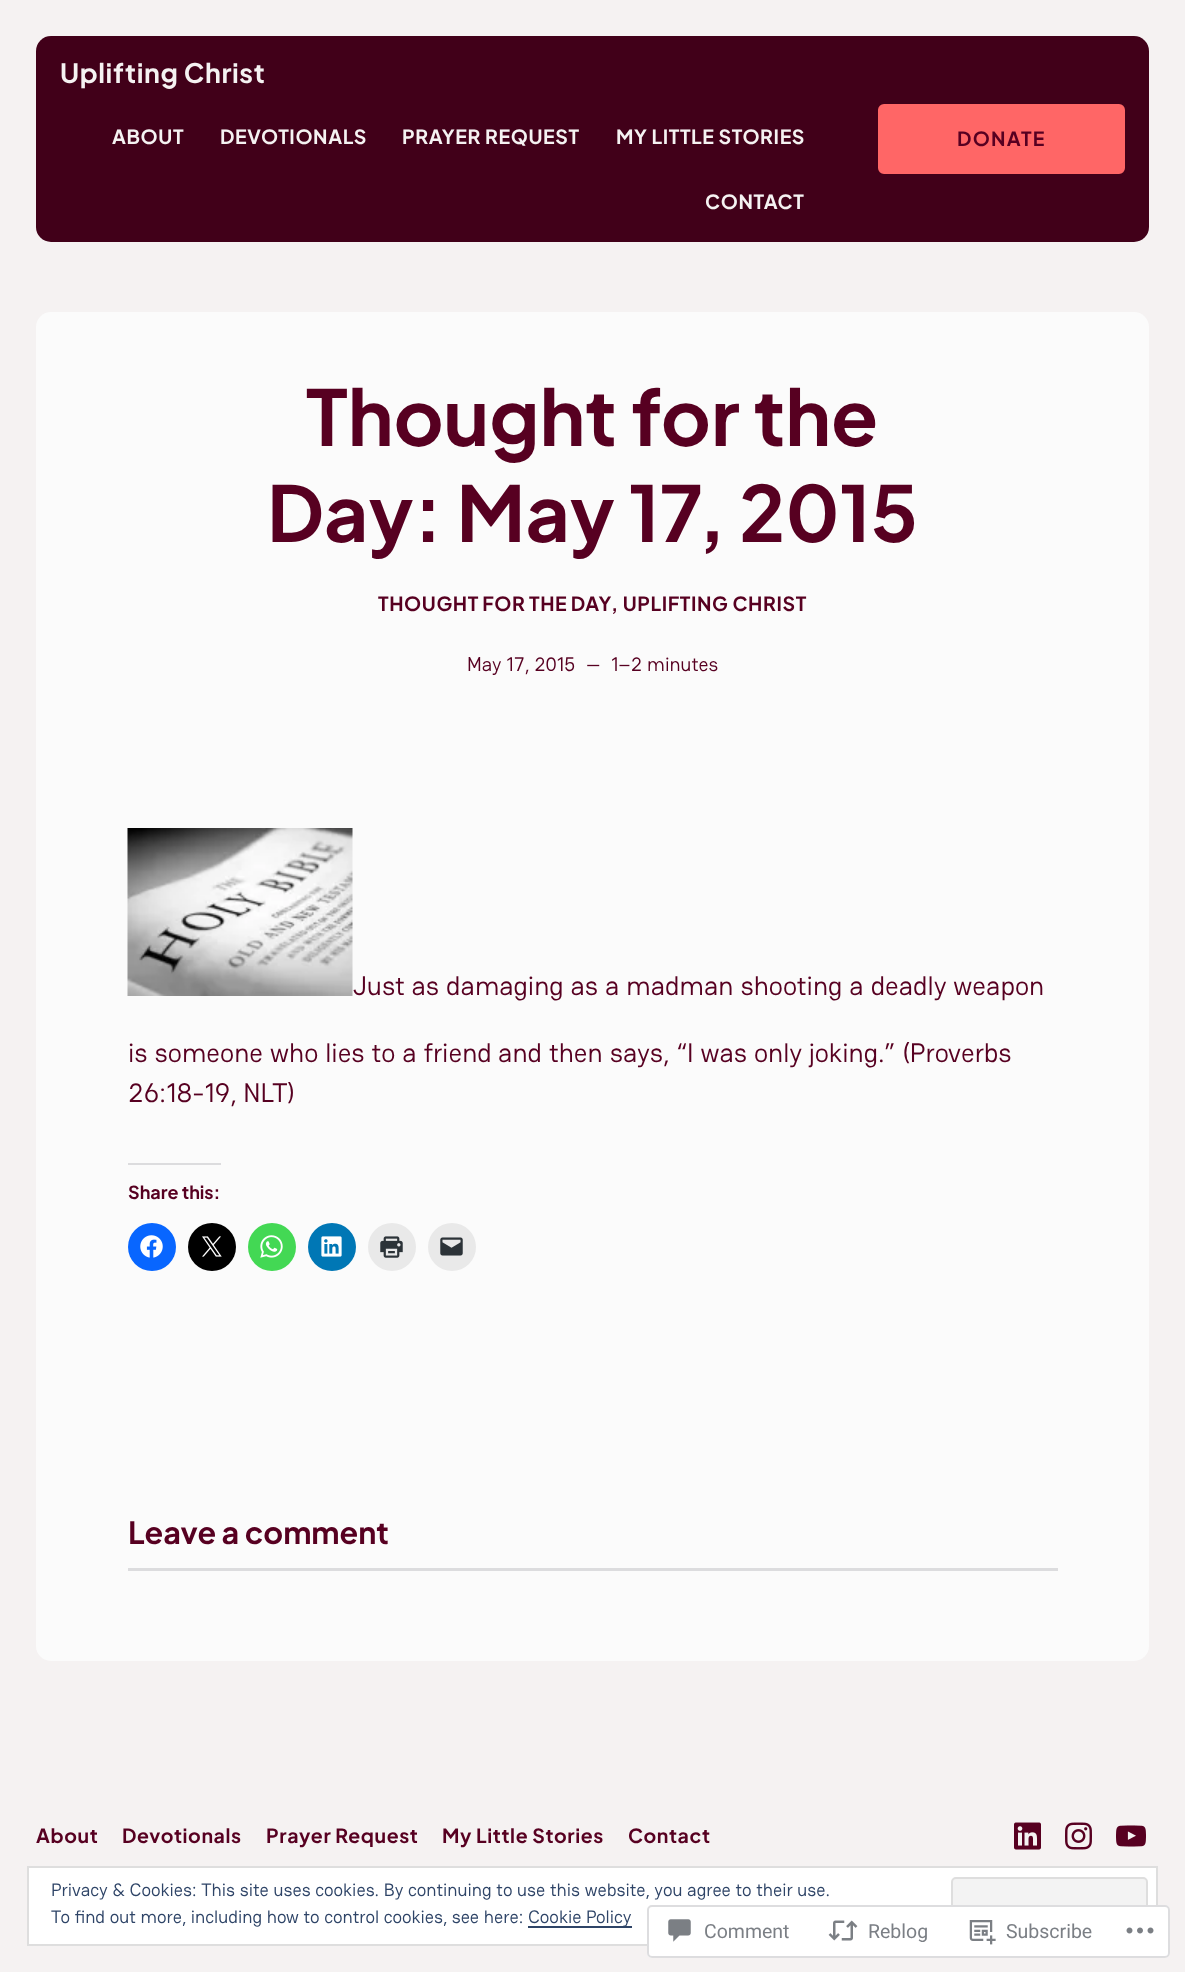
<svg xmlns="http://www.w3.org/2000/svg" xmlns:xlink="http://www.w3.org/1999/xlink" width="1185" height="1972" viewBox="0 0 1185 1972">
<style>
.cls-1{font:bold 26.7px Plus Jakarta Sans;letter-spacing:0.6px;fill:#f5f2f2}
.cls-2{font:bold 19.5px Plus Jakarta Sans;letter-spacing:0.6px;fill:#f5f2f2}
.cls-3{font:bold 19.5px Plus Jakarta Sans;letter-spacing:1.25px;fill:#570021}
.cls-4{font:bold 77px Plus Jakarta Sans;fill:#570021}
.cls-5{font:bold 19.5px Plus Jakarta Sans;letter-spacing:0.6px;fill:#570021}
.cls-6{font:19.5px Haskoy;fill:#570021}
.cls-7{font:26.7px Haskoy;fill:#570021}
.cls-8{font:bold 18px Plus Jakarta Sans;fill:#570021}
.cls-9{font:bold 30.5px Plus Jakarta Sans;fill:#570021}
.cls-10{font:18px Haskoy;fill:#2e4467}
.cls-11{font:19.5px Roboto;fill:#7b7f85}
</style>
<rect width="100%" height="100%" fill="#f5f2f2"/>
<rect fill="#410019" x="36" y="36" width="1113" height="206" rx="15"/>
<rect fill="#ff6666" stroke="#ff6666" stroke-width="2" x="879" y="105" width="245" height="68" rx="5"/>
<rect fill="#fbfbfb" x="36" y="312" width="1113" height="1349" rx="15"/>
<image xlink:href="image0.png" x="127" y="828" width="226" height="168"/>
<rect fill="#dcdcde" x="128" y="1163" width="93" height="2"/>
<circle fill="#0866ff" cx="152" cy="1247" r="24"/>
<image xlink:href="image1.png" x="140" y="1235" width="23" height="23"/>
<circle fill="#000000" cx="212" cy="1247" r="24"/>
<image xlink:href="image2.png" x="202" y="1236" width="20" height="21"/>
<circle fill="#43d854" cx="272" cy="1247" r="24"/>
<image xlink:href="image3.png" x="260" y="1235" width="23" height="23"/>
<circle fill="#0077b5" cx="332" cy="1247" r="24"/>
<image xlink:href="image4.png" x="321" y="1236" width="21" height="21"/>
<circle fill="#e9e9e9" cx="392" cy="1247" r="24"/>
<image xlink:href="image5.png" x="380" y="1236" width="23" height="22"/>
<circle fill="#e9e9e9" cx="452" cy="1247" r="24"/>
<image xlink:href="image6.png" x="440" y="1237" width="23" height="19"/>
<rect fill="#dcdcde" x="128" y="1568" width="930" height="3"/>
<image xlink:href="image7.png" x="1014" y="1822" width="27" height="28"/>
<image xlink:href="image8.png" x="1065" y="1822" width="27" height="28"/>
<image xlink:href="image9.png" x="1116" y="1825" width="30" height="22"/>
<rect fill="#ffffff" stroke="#dedede" stroke-width="2" x="28" y="1867" width="1129" height="78"/>
<rect fill="#f3f3f3" stroke="#dedede" stroke-width="2" x="952" y="1878" width="195" height="56" rx="4"/>
<rect fill="#2e4467" x="528" y="1926" width="104" height="2"/>
<rect fill="#ffffff" fill-opacity="0.98" x="647" y="1905" width="523" height="53" rx="5"/>
<rect fill="none" stroke="#dcdcde" stroke-opacity="0.98" stroke-width="2" x="648" y="1906" width="521" height="51" rx="4"/>
<image xlink:href="image10.png" x="668" y="1919" width="23" height="23"/>
<image xlink:href="image11.png" x="828" y="1920" width="30" height="21"/>
<image xlink:href="image12.png" x="969" y="1920" width="27" height="25"/>
<image xlink:href="image13.png" x="1126" y="1927" width="28" height="7"/>
<text class="cls-1" x="60" y="83">Uplifting Christ</text>
<text class="cls-2" x="112" y="144">ABOUT</text>
<text class="cls-2" x="220" y="144">DEVOTIONALS</text>
<text class="cls-2" x="402" y="144">PRAYER REQUEST</text>
<text class="cls-2" x="616" y="144">MY LITTLE STORIES</text>
<text class="cls-2" x="705" y="209">CONTACT</text>
<text class="cls-3" x="957" y="146">DONATE</text>
<text class="cls-4" x="306" y="446">Thought for the</text>
<text class="cls-4" x="267" y="542">Day: May 17, 2015</text>
<text class="cls-5" x="378" y="611" word-spacing="-0.5">THOUGHT FOR THE DAY</text>
<text class="cls-5" x="611" y="611">, UPLIFTING CHRIST</text>
<text class="cls-6" x="467" y="671">May 17, 2015</text>
<text class="cls-6" x="586" y="671">—</text>
<text class="cls-6" x="611" y="671">1–2 minutes</text>
<text class="cls-7" x="353" y="995">Just as damaging as a madman shooting a deadly weapon</text>
<text class="cls-7" x="128" y="1062">is someone who lies to a friend</text>
<text class="cls-7" x="498" y="1062">and then says, “I was only joking.” (Proverbs</text>
<text class="cls-7" x="128" y="1102">26:18-19, NLT)</text>
<text class="cls-8" x="128" y="1199">Share this:</text>
<text class="cls-9" x="128" y="1544">Leave a comment</text>
<text class="cls-5" x="36" y="1843">About</text>
<text class="cls-5" x="122" y="1843">Devotionals</text>
<text class="cls-5" x="266" y="1843">Prayer Request</text>
<text class="cls-5" x="442" y="1843">My Little Stories</text>
<text class="cls-5" x="628" y="1843">Contact</text>
<text class="cls-10"><tspan x="51" y="1896">Privacy &amp; Cookies: This site uses cookies. By continuing to use this website, you agree to their use.</tspan><tspan x="51" y="1923">To find out more, including how to control cookies, see here:</tspan></text>
<text class="cls-10" x="528" y="1923">Cookie Policy</text>
<text class="cls-11" x="704" y="1938">Comment</text>
<text class="cls-11" x="868" y="1938">Reblog</text>
<text class="cls-11" x="1006" y="1938">Subscribe</text>
</svg>
